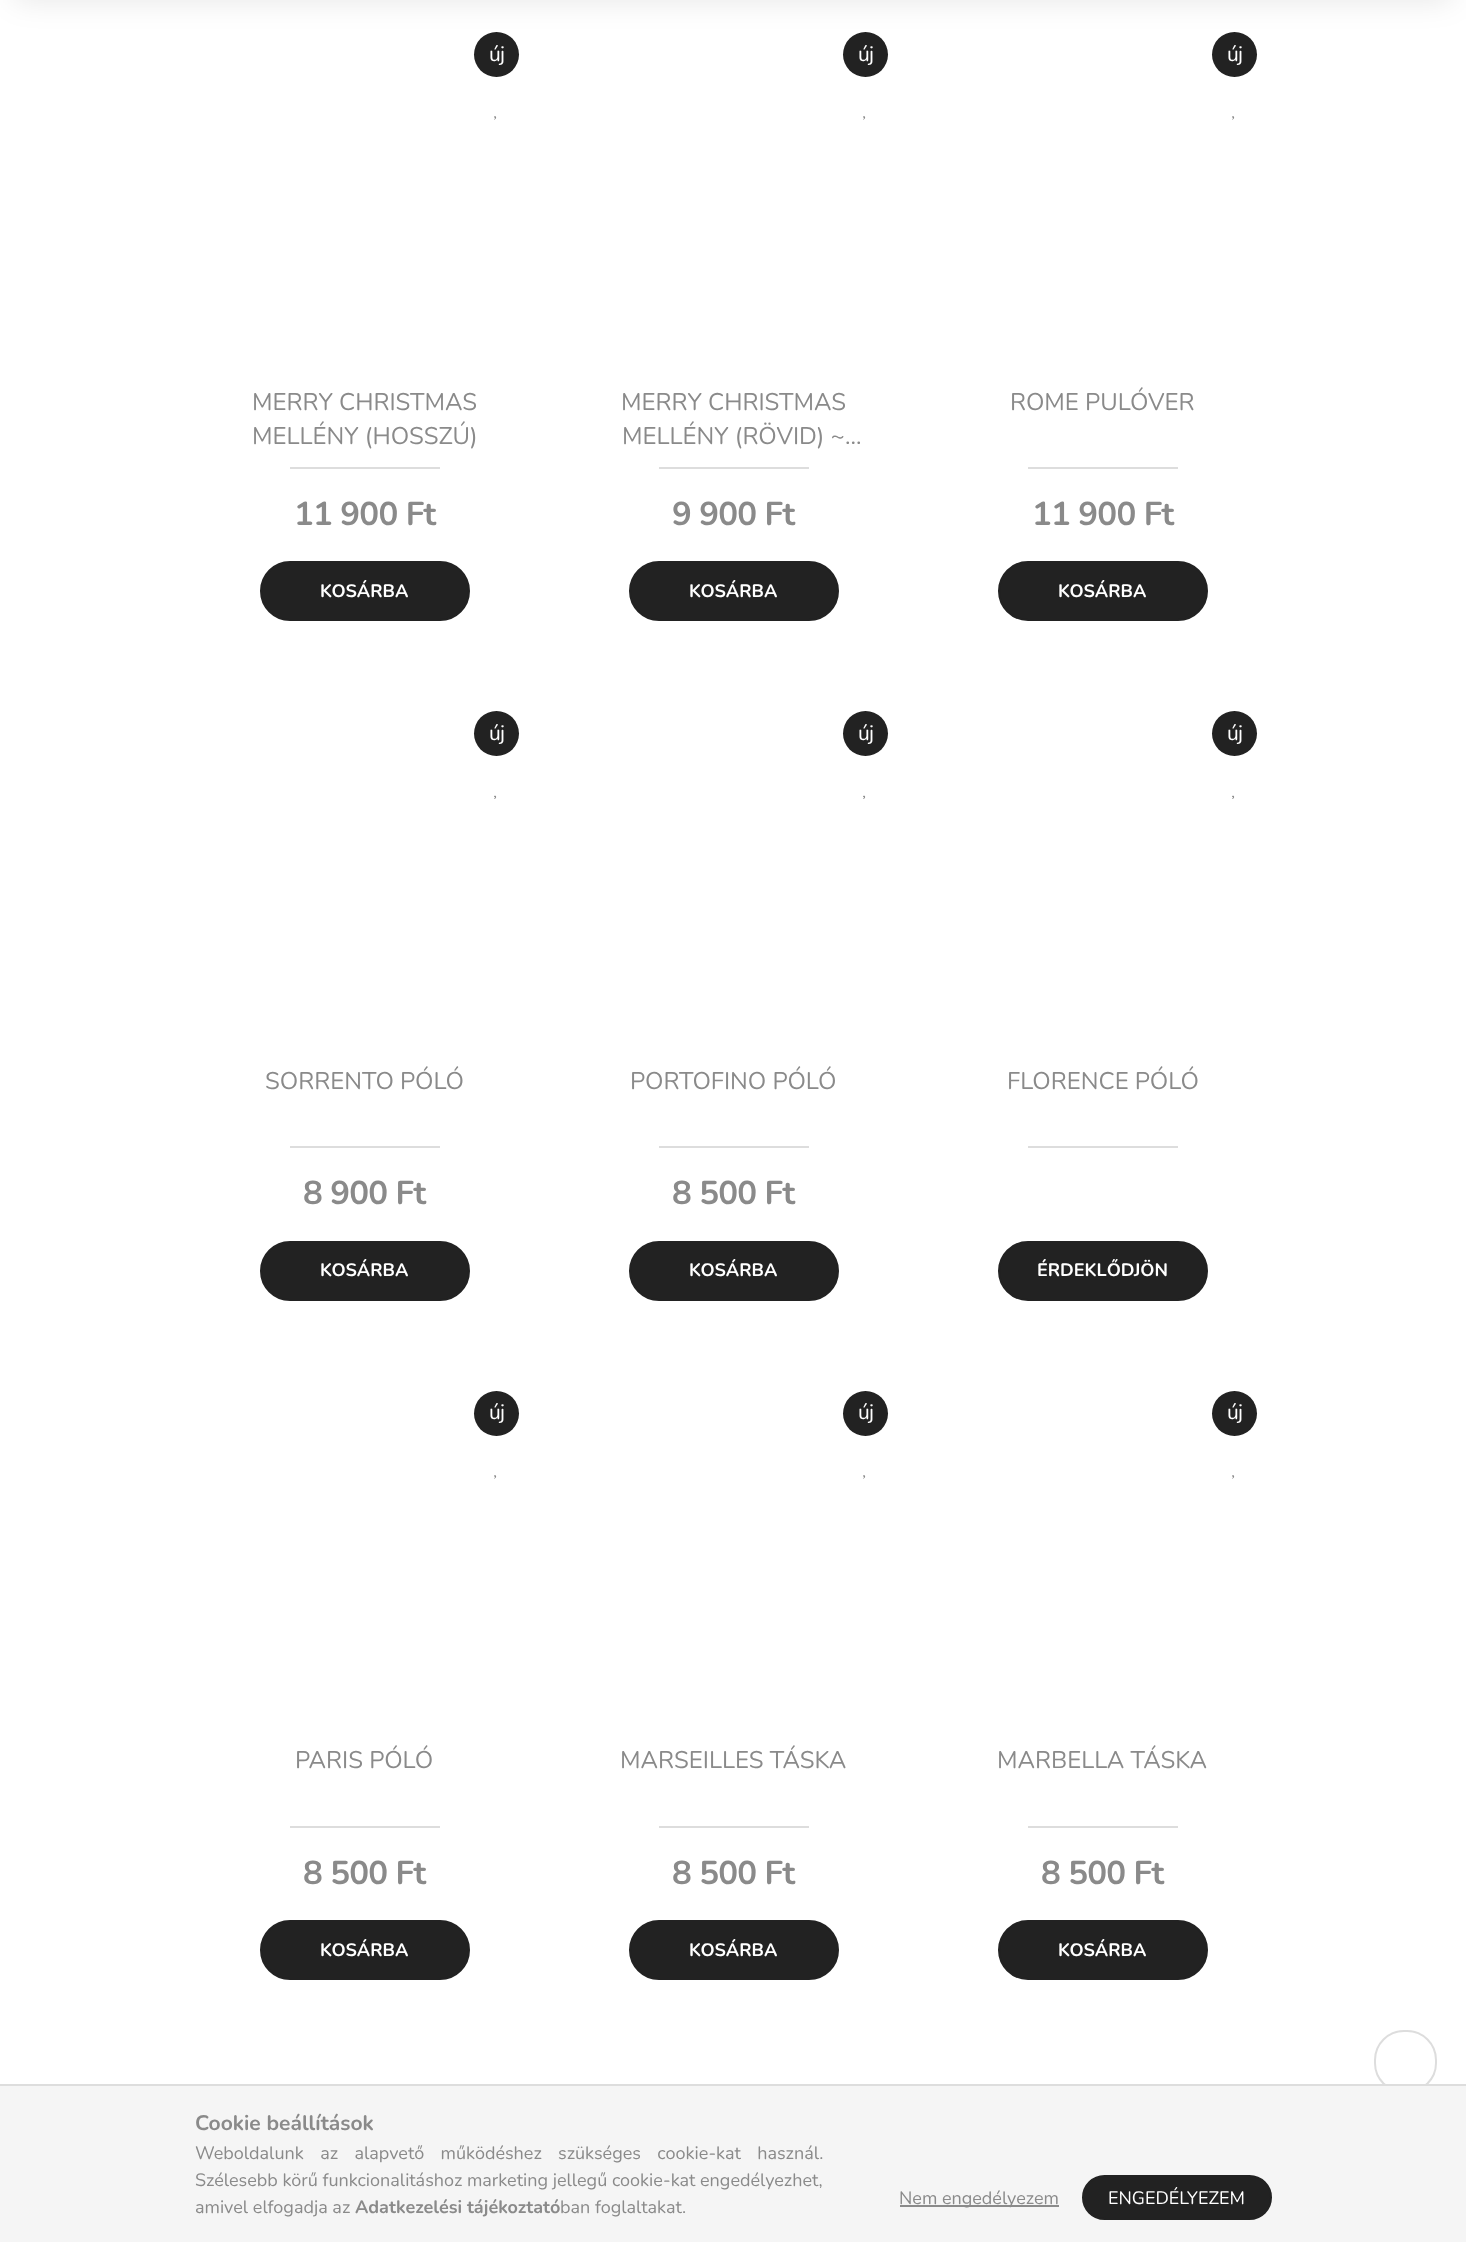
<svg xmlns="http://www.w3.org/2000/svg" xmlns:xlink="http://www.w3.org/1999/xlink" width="1466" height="2242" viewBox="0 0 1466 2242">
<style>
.cls-1{font:21px Nunito;letter-spacing:-0.75px;fill:#ffffff}
.cls-2{font:24px Nunito;fill:#8a8a8a}
.cls-3{font:bold 33px Nunito;letter-spacing:-0.75px;fill:#8a8a8a}
.cls-4{font:bold 18px Nunito;fill:#ffffff}
.cls-5{font:bold 21px Nunito;fill:#8a8a8a}
.cls-6{font:18px Nunito;fill:#8a8a8a}
.cls-7{font:bold 18px Nunito;fill:#8a8a8a}
.cls-8{font:18px Nunito;fill:#ffffff}
</style>
<rect width="100%" height="100%" fill="#ffffff"/>
<circle fill="#222222" cx="496.5" cy="54.5" r="22.5"/>
<circle fill="#222222" cx="865.5" cy="54.5" r="22.5"/>
<circle fill="#222222" cx="1234.5" cy="54.5" r="22.5"/>
<rect fill="#000000" fill-opacity="0.1" filter="blur(15px)" x="15" y="-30" width="1437" height="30"/>
<image xlink:href="image0.png" x="494" y="116" width="3" height="4"/>
<rect fill="#dddddd" x="290" y="467" width="150" height="2"/>
<rect fill="#222222" stroke="#222222" stroke-width="2" x="261" y="562" width="208" height="58" rx="29"/>
<image xlink:href="image0.png" x="863" y="116" width="3" height="4"/>
<rect fill="#dddddd" x="659" y="467" width="150" height="2"/>
<rect fill="#222222" stroke="#222222" stroke-width="2" x="630" y="562" width="208" height="58" rx="29"/>
<image xlink:href="image0.png" x="1232" y="116" width="3" height="4"/>
<rect fill="#dddddd" x="1028" y="467" width="150" height="2"/>
<rect fill="#222222" stroke="#222222" stroke-width="2" x="999" y="562" width="208" height="58" rx="29"/>
<circle fill="#222222" cx="496.5" cy="733.5" r="22.5"/>
<image xlink:href="image1.png" x="494" y="795" width="3" height="4"/>
<rect fill="#dddddd" x="290" y="1146" width="150" height="2"/>
<rect fill="#222222" stroke="#222222" stroke-width="2" x="261" y="1242" width="208" height="58" rx="29"/>
<circle fill="#222222" cx="865.5" cy="733.5" r="22.5"/>
<image xlink:href="image1.png" x="863" y="795" width="3" height="4"/>
<rect fill="#dddddd" x="659" y="1146" width="150" height="2"/>
<rect fill="#222222" stroke="#222222" stroke-width="2" x="630" y="1242" width="208" height="58" rx="29"/>
<circle fill="#222222" cx="1234.5" cy="733.5" r="22.5"/>
<image xlink:href="image1.png" x="1232" y="795" width="3" height="4"/>
<rect fill="#dddddd" x="1028" y="1146" width="150" height="2"/>
<rect fill="#222222" stroke="#222222" stroke-width="2" x="999" y="1242" width="208" height="58" rx="29"/>
<circle fill="#222222" cx="496.5" cy="1413.5" r="22.5"/>
<image xlink:href="image0.png" x="494" y="1475" width="3" height="4"/>
<rect fill="#dddddd" x="290" y="1826" width="150" height="2"/>
<rect fill="#222222" stroke="#222222" stroke-width="2" x="261" y="1921" width="208" height="58" rx="29"/>
<circle fill="#222222" cx="865.5" cy="1413.5" r="22.5"/>
<image xlink:href="image0.png" x="863" y="1475" width="3" height="4"/>
<rect fill="#dddddd" x="659" y="1826" width="150" height="2"/>
<rect fill="#222222" stroke="#222222" stroke-width="2" x="630" y="1921" width="208" height="58" rx="29"/>
<circle fill="#222222" cx="1234.5" cy="1413.5" r="22.5"/>
<image xlink:href="image0.png" x="1232" y="1475" width="3" height="4"/>
<rect fill="#dddddd" x="1028" y="1826" width="150" height="2"/>
<rect fill="#222222" stroke="#222222" stroke-width="2" x="999" y="1921" width="208" height="58" rx="29"/>
<rect fill="none" stroke="#dddddd" stroke-width="2" x="1375" y="2031" width="61" height="61" rx="29"/>
<rect fill="#f5f5f5" x="0" y="2086" width="1466" height="156"/>
<rect fill="#dddddd" x="0" y="2084" width="1466" height="2"/>
<rect fill="#8a8a8a" x="900" y="2205" width="159" height="2"/>
<rect fill="#222222" stroke="#222222" stroke-width="2" x="1083" y="2176" width="188" height="43" rx="21.5"/>
<text class="cls-1" x="489" y="61">új</text>
<text class="cls-2"><tspan x="252" y="410">MERRY CHRISTMAS</tspan><tspan x="252" y="444">MELLÉNY (HOSSZÚ)</tspan></text>
<text class="cls-3" x="294" y="525">11 900 Ft</text>
<text class="cls-4" x="320" y="597">KOSÁRBA</text>
<text class="cls-1" x="858" y="61">új</text>
<text class="cls-2" x="621" y="410">MERRY CHRISTMAS</text>
<text class="cls-2" x="622" y="444">MELLÉNY (RÖVID) ~…</text>
<text class="cls-3" x="672" y="525">9 900 Ft</text>
<text class="cls-4" x="689" y="597">KOSÁRBA</text>
<text class="cls-1" x="1227" y="61">új</text>
<text class="cls-2" x="1010" y="410">ROME PULÓVER</text>
<text class="cls-3" x="1032" y="525">11 900 Ft</text>
<text class="cls-4" x="1058" y="597">KOSÁRBA</text>
<text class="cls-1" x="489" y="740">új</text>
<text class="cls-2" x="265" y="1089">SORRENTO PÓLÓ</text>
<text class="cls-3" x="303" y="1204">8 900 Ft</text>
<text class="cls-4" x="320" y="1276">KOSÁRBA</text>
<text class="cls-1" x="858" y="740">új</text>
<text class="cls-2" x="630" y="1089">PORTOFINO PÓLÓ</text>
<text class="cls-3" x="672" y="1204">8 500 Ft</text>
<text class="cls-4" x="689" y="1276">KOSÁRBA</text>
<text class="cls-1" x="1227" y="740">új</text>
<text class="cls-2" x="1007" y="1089">FLORENCE PÓLÓ</text>
<text class="cls-4" x="1037" y="1276">ÉRDEKLŐDJÖN</text>
<text class="cls-1" x="489" y="1419">új</text>
<text class="cls-2" x="295" y="1768">PARIS PÓLÓ</text>
<text class="cls-3" x="303" y="1884">8 500 Ft</text>
<text class="cls-4" x="320" y="1956">KOSÁRBA</text>
<text class="cls-1" x="858" y="1419">új</text>
<text class="cls-2" x="620" y="1768">MARSEILLES TÁSKA</text>
<text class="cls-3" x="672" y="1884">8 500 Ft</text>
<text class="cls-4" x="689" y="1956">KOSÁRBA</text>
<text class="cls-1" x="1227" y="1419">új</text>
<text class="cls-2" x="997" y="1768">MARBELLA TÁSKA</text>
<text class="cls-3" x="1041" y="1884">8 500 Ft</text>
<text class="cls-4" x="1058" y="1956">KOSÁRBA</text>
<text class="cls-5" x="195" y="2130">Cookie beállítások</text>
<text class="cls-6"><tspan x="195" y="2159" word-spacing="11.75">Weboldalunk az alapvető működéshez szükséges cookie-kat használ.</tspan><tspan x="195" y="2186">Szélesebb körű funkcionalitáshoz marketing jellegű cookie-kat engedélyezhet,</tspan><tspan x="195" y="2213">amivel elfogadja az</tspan></text>
<text class="cls-7" x="355" y="2213">Adatkezelési tájékoztató</text>
<text class="cls-6" x="560" y="2213">ban foglaltakat.</text>
<text class="cls-6" x="899" y="2204">Nem engedélyezem</text>
<text class="cls-8" x="1108" y="2204">ENGEDÉLYEZEM</text>
</svg>
